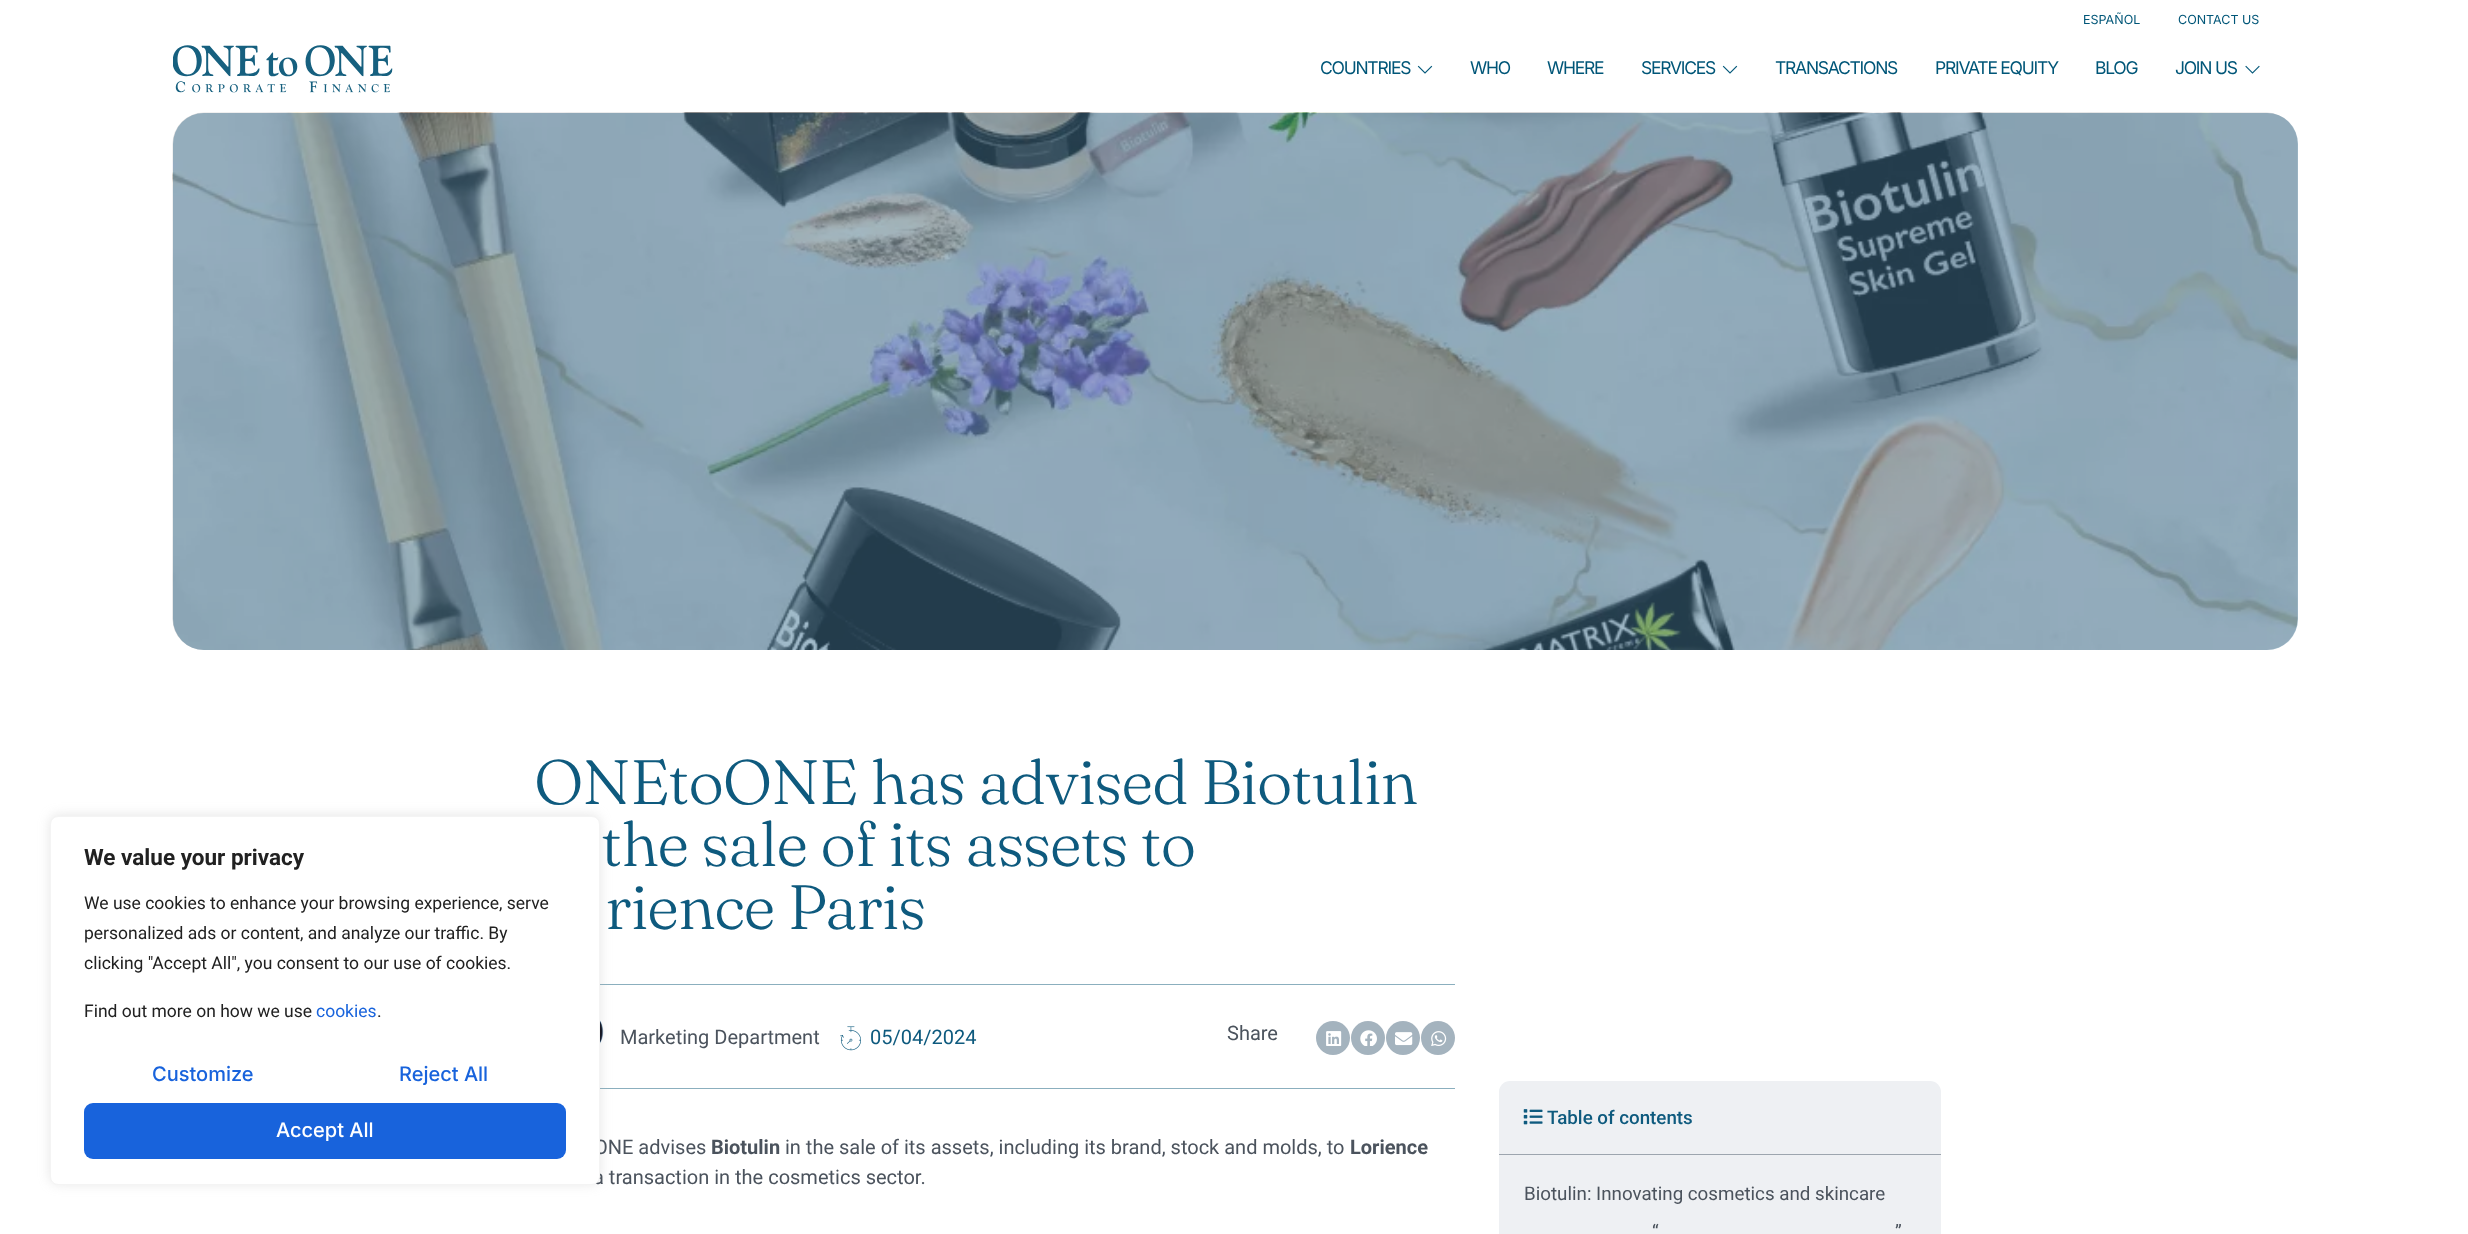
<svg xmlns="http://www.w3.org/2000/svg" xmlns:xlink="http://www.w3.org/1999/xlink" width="2468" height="1234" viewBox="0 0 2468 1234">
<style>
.cls-1{font:12.5px Inter;fill:#005678}
.cls-2{font:17.5px Inter;letter-spacing:-1.25px;fill:#005678}
.cls-3{font:300 62.5px Fraunces;letter-spacing:-1.25px;fill:#0e5a7e}
.cls-4{font:20px Roboto;fill:#4b535d}
.cls-5{font:20px Roboto;fill:#0e5a7e}
.cls-6{font:bold 20px Roboto;fill:#4b535d}
.cls-7{font:500 20px Inter;fill:#ffffff}
.cls-8{font:500 20px Inter;fill:#1863dc}
.cls-9{font:17.5px Roboto;fill:#212121}
.cls-10{font:17.5px Roboto;fill:#1863dc}
.cls-11{font:bold 22.5px Roboto;fill:#212121}
.cls-12{font:500 18.75px Roboto;fill:#0e5a7e}
.cls-13{font:18.75px Roboto;fill:#4b535d}
</style>
<rect width="100%" height="100%" fill="#ffffff"/>
<image xlink:href="image0.png" x="173" y="45" width="220" height="48"/>
<image xlink:href="image1.png" x="1417" y="65" width="16" height="9"/>
<image xlink:href="image1.png" x="1722" y="65" width="16" height="9"/>
<image xlink:href="image2.png" x="2245" y="65" width="15" height="9"/>
<rect fill="#8bafbe" x="600" y="984" width="855" height="1"/>
<image xlink:href="image4.png" x="600" y="1020" width="4" height="24"/>
<rect fill="#8bafbe" x="600" y="1088" width="855" height="1"/>
<rect fill="#acabab" fill-opacity="0.3" filter="blur(6px)" x="50" y="815" width="550" height="369" rx="8"/>
<image xlink:href="image3.png" x="172" y="112" width="2126" height="538"/>
<rect fill="#457896" fill-opacity="0.5" x="173" y="113" width="2125" height="537" rx="31"/>
<image xlink:href="image5.png" x="840" y="1026" width="21" height="25"/>
<circle fill="#a4b3be" cx="1333" cy="1038" r="17"/>
<image xlink:href="image6.png" x="1326" y="1031" width="16" height="15"/>
<circle fill="#a4b3be" cx="1368" cy="1038" r="17"/>
<image xlink:href="image7.png" x="1360" y="1030" width="17" height="16"/>
<circle fill="#a4b3be" cx="1403" cy="1038" r="17"/>
<image xlink:href="image8.png" x="1395" y="1032" width="18" height="14"/>
<circle fill="#a4b3be" cx="1438" cy="1038" r="17"/>
<image xlink:href="image9.png" x="1431" y="1031" width="16" height="15"/>
<rect fill="#eef0f3" x="1499" y="1081" width="442" height="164" rx="11"/>
<rect fill="#9da5ae" x="1499" y="1154" width="442" height="1"/>
<image xlink:href="image10.png" x="1523" y="1109" width="20" height="16"/>
<text class="cls-1" x="2083" y="24">ESPAÑOL</text>
<text class="cls-1" x="2178" y="24">CONTACT US</text>
<text class="cls-2" x="1320" y="74">COUNTRIES</text>
<text class="cls-2" x="1470" y="74">WHO</text>
<text class="cls-2" x="1547" y="74">WHERE</text>
<text class="cls-2" x="1641" y="74">SERVICES</text>
<text class="cls-2" x="1775" y="74">TRANSACTIONS</text>
<text class="cls-2" x="1935" y="74">PRIVATE EQUITY</text>
<text class="cls-2" x="2095" y="74">BLOG</text>
<text class="cls-2" x="2175" y="74">JOIN US</text>
<text class="cls-3" x="534" y="804">ONEtoONE has advised Biotulin</text>
<text class="cls-3" x="601" y="866">the sale of its assets to</text>
<text class="cls-3" x="605" y="929">rience Paris</text>
<text class="cls-4" x="620" y="1044">Marketing Department</text>
<text class="cls-5" x="870" y="1044">05/04/2024</text>
<text class="cls-4" x="1227" y="1040">Share</text>
<text class="cls-4" x="594" y="1154">ONE advises</text>
<text class="cls-6" x="711" y="1154">Biotulin</text>
<text class="cls-4" x="785" y="1154">in the sale of its assets, including its brand, stock and molds, to</text>
<text class="cls-6" x="1350" y="1154">Lorience</text>
<text class="cls-4" x="593" y="1184">a transaction in the cosmetics sector.</text>
<rect fill="#ffffff" stroke="#f4f4f4" x="50.5" y="816.5" width="549" height="368" rx="7.5"/>
<rect fill="#1863dc" x="84" y="1103" width="482" height="56" rx="9"/>
<text class="cls-7" x="276" y="1137">Accept All</text>
<text class="cls-8" x="399" y="1081">Reject All</text>
<text class="cls-8" x="152" y="1081">Customize</text>
<text class="cls-9" x="377" y="1017">.</text>
<text class="cls-10" x="316" y="1017">cookies</text>
<text class="cls-9" x="84" y="1017">Find out more on how we use</text>
<text class="cls-9" x="84" y="969">clicking "Accept All", you consent to our use of cookies.</text>
<text class="cls-9" x="84" y="939">personalized ads or content, and analyze our traffic. By</text>
<text class="cls-9" x="84" y="909">We use cookies to enhance your browsing experience, serve</text>
<text class="cls-11" x="84" y="865">We value your privacy</text>
<text class="cls-12" x="1547" y="1124">Table of contents</text>
<text class="cls-13" x="1524" y="1200">Biotulin: Innovating cosmetics and skincare</text>
<text class="cls-13" x="1652" y="1238">“</text>
<text class="cls-13" x="1895" y="1238">”</text>
</svg>
